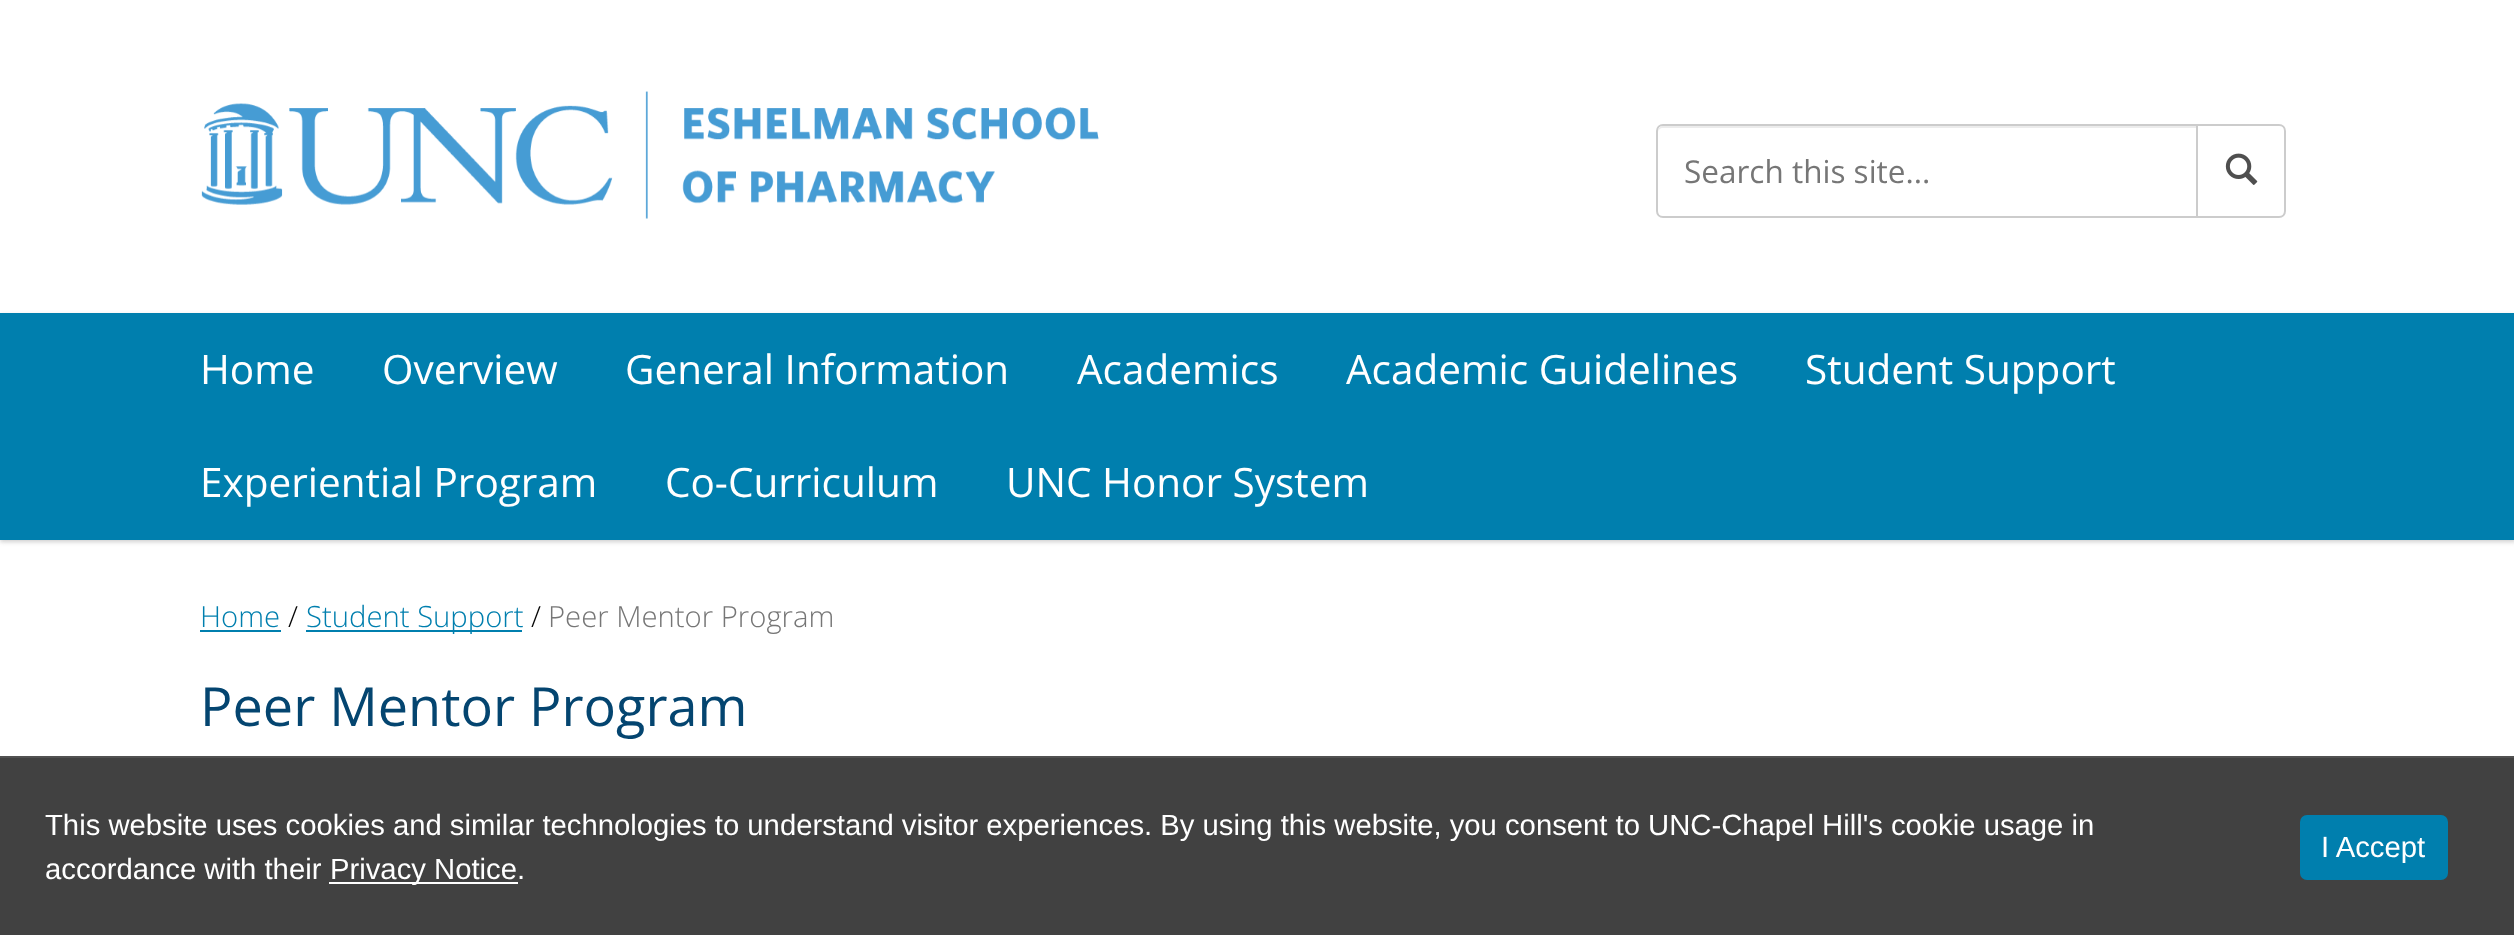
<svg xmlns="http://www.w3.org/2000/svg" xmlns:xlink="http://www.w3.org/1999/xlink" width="2514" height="935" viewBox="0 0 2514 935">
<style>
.cls-1{font:31.5px Open Sans;fill:#767676}
.cls-2{font:40.5px Open Sans;fill:#ffffff}
.cls-3{font:300 29.25px Open Sans;fill:#007fae}
.cls-4{font:300 29.25px Open Sans;fill:#030303}
.cls-5{font:300 29.25px Open Sans;fill:#767676}
.cls-6{font:54px Open Sans;fill:#044570}
.cls-7{font:29.25px Liberation Sans;fill:#ffffff}
</style>
<rect width="100%" height="100%" fill="#ffffff"/>
<image xlink:href="image0.png" x="201" y="91" width="898" height="128"/>
<path fill="#ececec" d="M1663 128H2196V126H1663C1659 126 1658 130 1658 133C1658 130 1660 128 1663 128Z"/>
<path fill="none" stroke="#cccccc" stroke-width="2" d="M1663 125H2197V217H1663C1659.5 217 1657 214.5 1657 211V131C1657 127.5 1659.5 125 1663 125Z"/>
<path fill="#ffffff" stroke="#cccccc" stroke-width="2" d="M2197 125H2279C2282.5 125 2285 127.5 2285 131V211C2285 214.5 2282.5 217 2279 217H2197Z"/>
<image xlink:href="image1.png" x="2225" y="153" width="33" height="32"/>
<rect fill="#646464" fill-opacity="0.3" filter="blur(2px)" x="0" y="315" width="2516" height="227"/>
<rect fill="#007fae" x="0" y="313" width="2514" height="227"/>
<rect fill="#007fae" x="200" y="630" width="81" height="2"/>
<rect fill="#007fae" x="306" y="630" width="216" height="2"/>
<rect fill="#414141" x="0" y="758" width="2514" height="177"/>
<rect fill="#515151" x="0" y="756" width="2514" height="2"/>
<rect fill="#ffffff" x="329" y="882" width="189" height="2"/>
<rect fill="#007fae" x="2300" y="815" width="148" height="65" rx="7"/>
<text class="cls-1" x="1684" y="183">Search this site...</text>
<text class="cls-2" x="200" y="384">Home</text>
<text class="cls-2" x="382" y="384">Overview</text>
<text class="cls-2" x="625" y="384">General Information</text>
<text class="cls-2" x="1077" y="384">Academics</text>
<text class="cls-2" x="1346" y="384">Academic Guidelines</text>
<text class="cls-2" x="1805" y="384">Student Support</text>
<text class="cls-2" x="200" y="497">Experiential Program</text>
<text class="cls-2" x="665" y="497">Co-Curriculum</text>
<text class="cls-2" x="1006" y="497">UNC Honor System</text>
<text class="cls-3" x="200" y="627">Home</text>
<text class="cls-4" x="288" y="627">/</text>
<text class="cls-3" x="306" y="627">Student Support</text>
<text class="cls-4" x="531" y="627">/</text>
<text class="cls-5" x="548" y="627">Peer Mentor Program</text>
<text class="cls-6" x="200" y="726">Peer Mentor Program</text>
<text class="cls-7"><tspan x="45" y="835">This website uses cookies and similar technologies to understand visitor experiences. By using this website, you consent to UNC-Chapel Hill's cookie usage in</tspan><tspan x="45" y="879">accordance with their</tspan></text>
<text class="cls-7" x="330" y="879">Privacy Notice.</text>
<text class="cls-7" x="2321" y="857">I Accept</text>
</svg>
